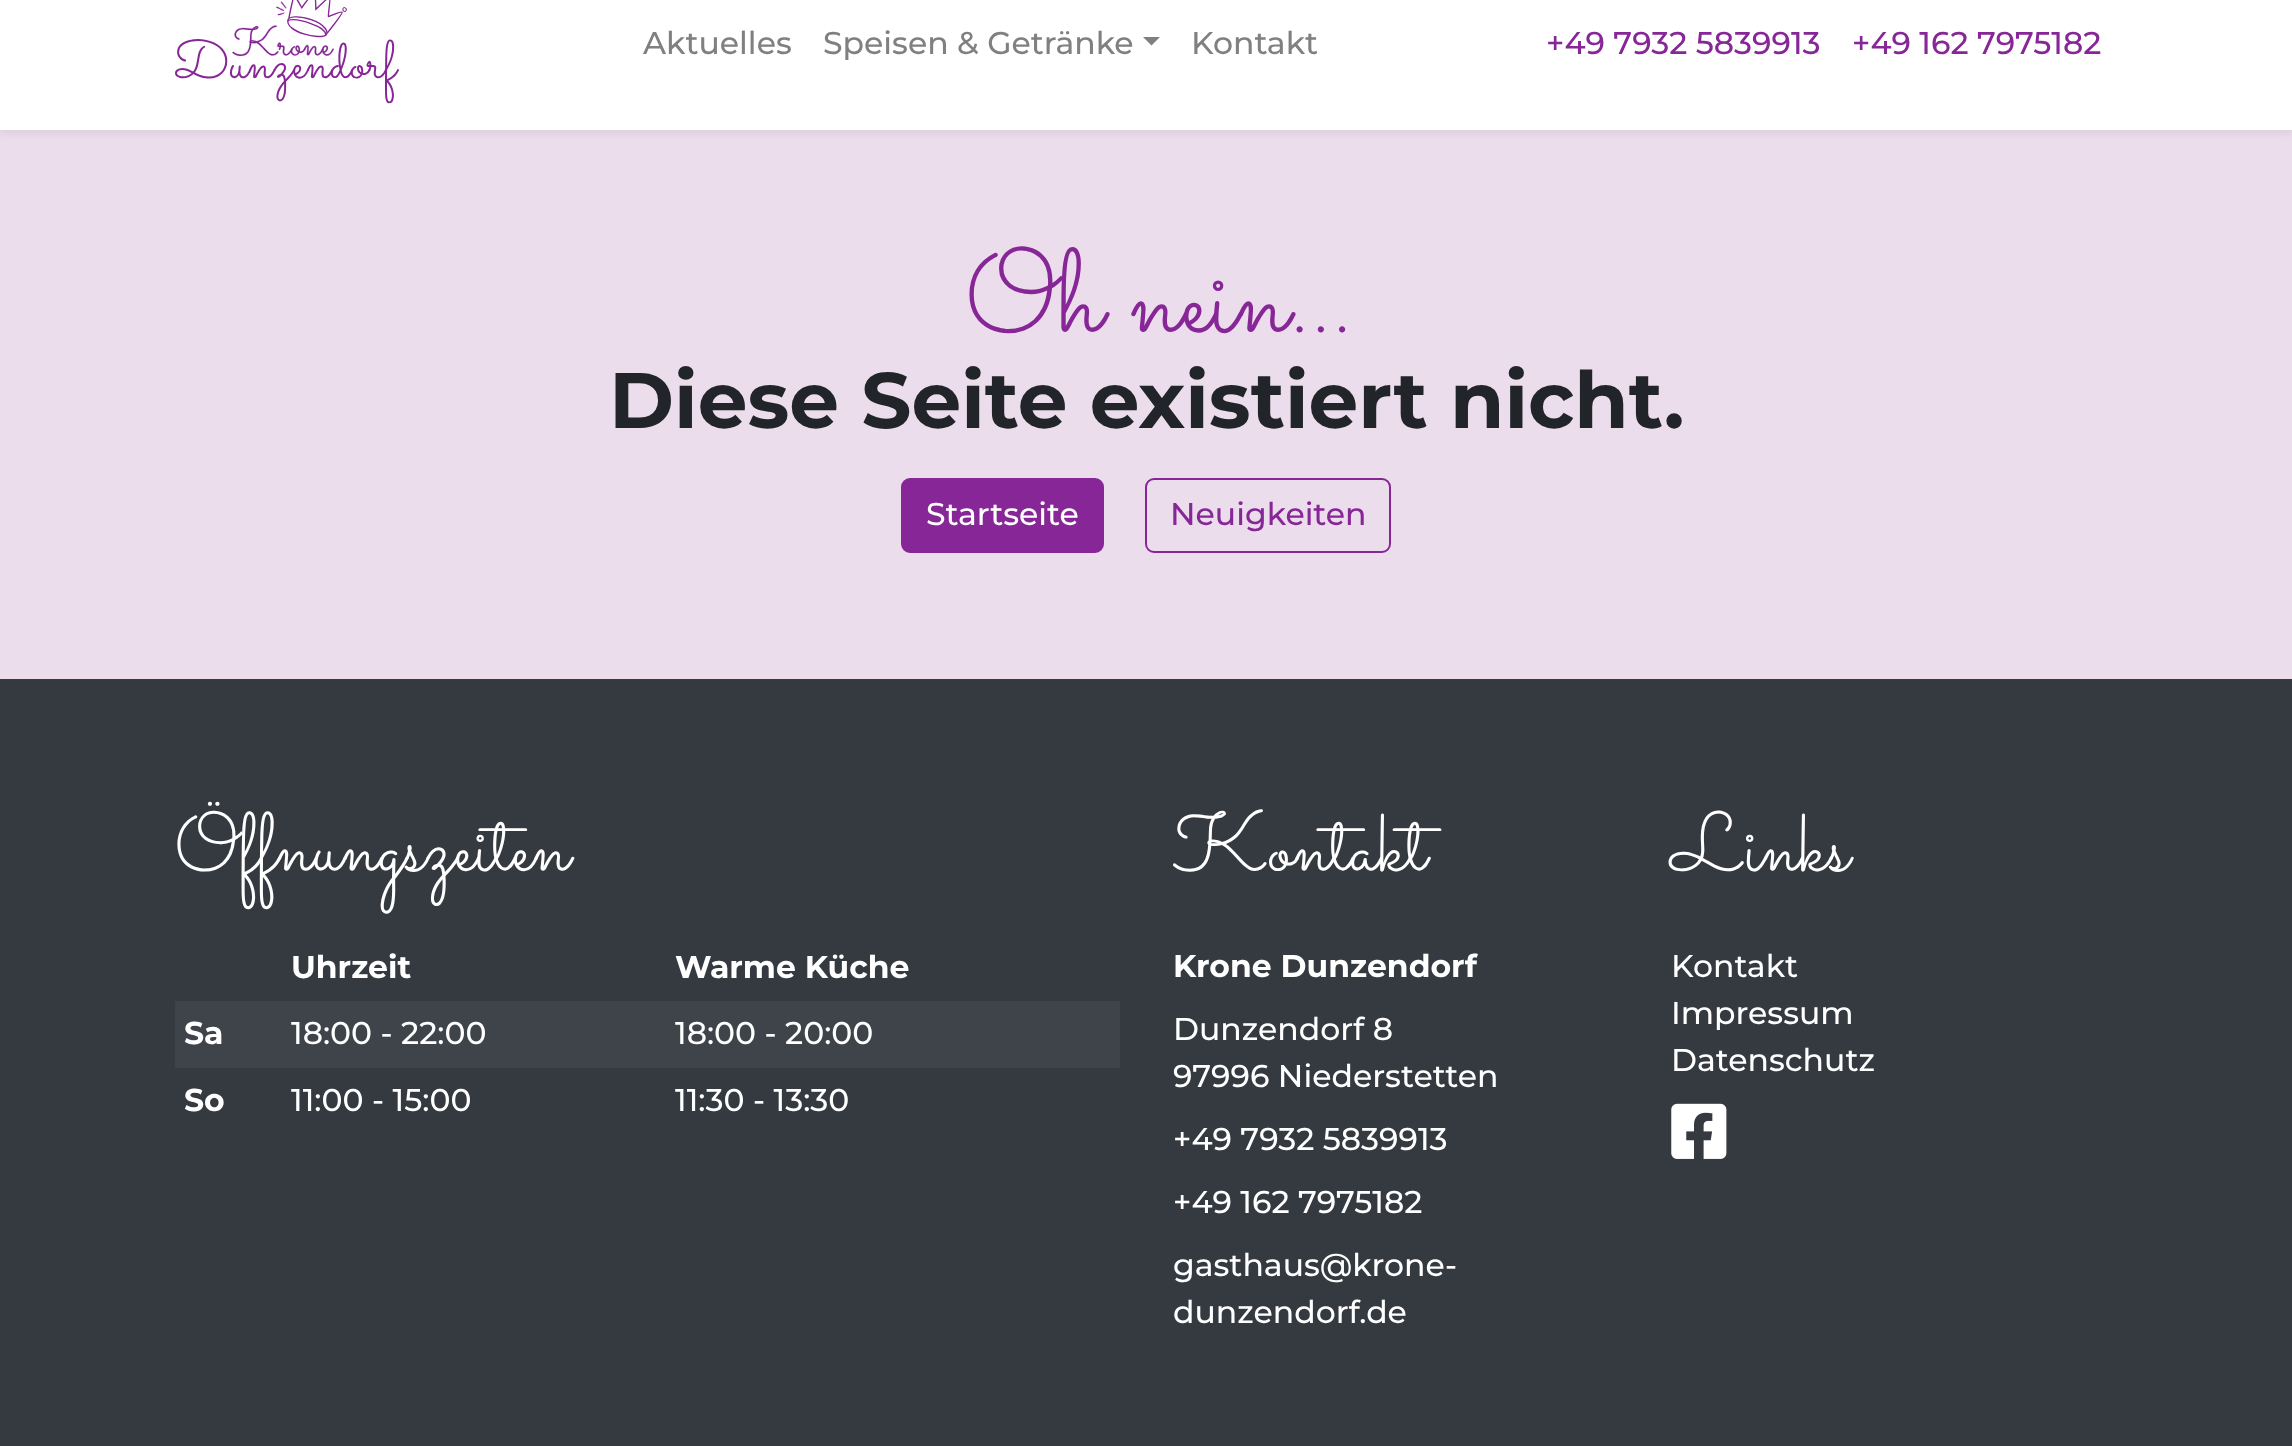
<svg xmlns="http://www.w3.org/2000/svg" xmlns:xlink="http://www.w3.org/1999/xlink" width="2292" height="1446" viewBox="0 0 2292 1446">
<style>
.cls-1{font:500 31.5px Montserrat;fill:#808080}
.cls-2{font:500 31.5px Montserrat;fill:#872697}
.cls-3{font:118px Sacramento;fill:#872697}
.cls-4{font:bold 78.75px Montserrat;fill:#212529}
.cls-5{font:500 31.5px Montserrat;fill:#ffffff}
.cls-6{font:82.5px Sacramento;fill:#ffffff}
.cls-7{font:bold 31.5px Montserrat;fill:#ffffff}
</style>
<rect width="100%" height="100%" fill="#ebddeb"/>
<rect fill="#000000" fill-opacity="0.07" filter="blur(4px)" x="0" y="-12" width="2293" height="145"/>
<rect fill="#ffffff" x="0" y="0" width="2292" height="130"/>
<image xlink:href="image0.png" x="175" y="0" width="224" height="104"/>
<path fill="#808080" d="M1143 37H1160L1151.5 45.5Z"/>
<rect fill="#872697" stroke="#872697" stroke-width="2" x="902" y="479" width="201" height="73" rx="8"/>
<rect fill="none" stroke="#872697" stroke-width="2" x="1146" y="479" width="244" height="73" rx="8"/>
<rect fill="#343a40" x="0" y="679" width="2292" height="767"/>
<rect fill="#3e444a" x="175" y="1001" width="945" height="67"/>
<image xlink:href="image1.png" x="1671" y="1103" width="56" height="56"/>
<text class="cls-1" x="643" y="54">Aktuelles</text>
<text class="cls-1" x="823" y="54">Speisen &amp; Getränke</text>
<text class="cls-1" x="1191" y="54">Kontakt</text>
<text class="cls-2" x="1546" y="54">+49 7932 5839913</text>
<text class="cls-2" x="1852" y="54">+49 162 7975182</text>
<text class="cls-3" x="966" y="331">Oh nein...</text>
<text class="cls-4" x="609" y="428">Diese Seite existiert nicht.</text>
<text class="cls-5" x="926" y="525">Startseite</text>
<text class="cls-2" x="1170" y="525">Neuigkeiten</text>
<text class="cls-6" x="175" y="870">Öffnungszeiten</text>
<text class="cls-7" x="291" y="978">Uhrzeit</text>
<text class="cls-7" x="675" y="978">Warme Küche</text>
<text class="cls-7" x="184" y="1044">Sa</text>
<text class="cls-5" x="291" y="1044">18:00 - 22:00</text>
<text class="cls-5" x="675" y="1044">18:00 - 20:00</text>
<text class="cls-7" x="184" y="1111">So</text>
<text class="cls-5" x="291" y="1111">11:00 - 15:00</text>
<text class="cls-5" x="675" y="1111">11:30 - 13:30</text>
<text class="cls-6" x="1173" y="870">Kontakt</text>
<text class="cls-7" x="1173" y="977">Krone Dunzendorf</text>
<text class="cls-5"><tspan x="1173" y="1040">Dunzendorf 8</tspan><tspan x="1173" y="1087">97996 Niederstetten</tspan></text>
<text class="cls-5" x="1173" y="1150">+49 7932 5839913</text>
<text class="cls-5" x="1173" y="1213">+49 162 7975182</text>
<text class="cls-5"><tspan x="1173" y="1276">gasthaus@krone-</tspan><tspan x="1173" y="1323">dunzendorf.de</tspan></text>
<text class="cls-6" x="1671" y="870">Links</text>
<text class="cls-5"><tspan x="1671" y="977">Kontakt</tspan><tspan x="1671" y="1024">Impressum</tspan><tspan x="1671" y="1071">Datenschutz</tspan></text>
</svg>
